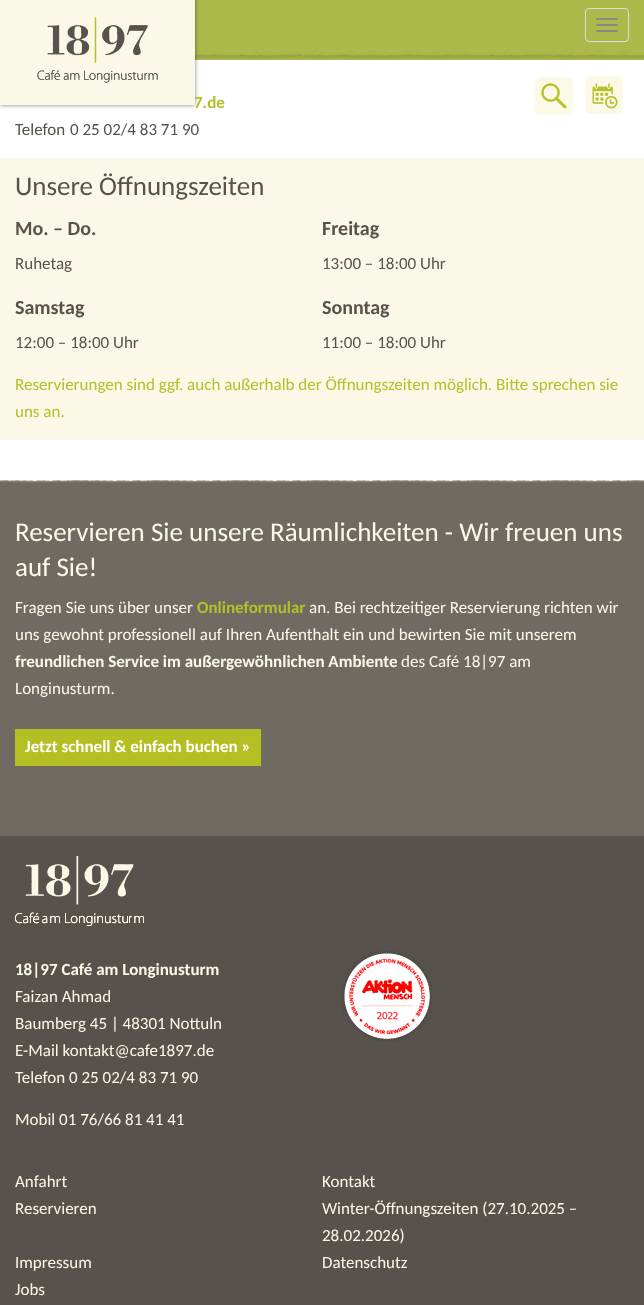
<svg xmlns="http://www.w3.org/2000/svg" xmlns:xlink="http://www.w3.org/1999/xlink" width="644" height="1305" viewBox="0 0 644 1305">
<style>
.cls-1{font:17px Carlito;fill:#57524a}
.cls-2{font:bold 17px Carlito;fill:#b2c12a}
.cls-3{font:27px Carlito;fill:#57524a}
.cls-4{font:bold 20px Carlito;fill:#57524a}
.cls-5{font:17px Carlito;fill:#b2c12a}
.cls-6{font:27px Carlito;fill:#faf9e7}
.cls-7{font:17px Carlito;fill:#faf9e7}
.cls-8{font:bold 17px Carlito;fill:#faf9e7}
.cls-9{font:bold 17px Carlito;fill:#ffffff}
</style>
<rect width="100%" height="100%" fill="#faf9e7"/>
<rect fill="#ffffff" x="0" y="0" width="644" height="480"/>
<rect fill="#a3b339" fill-opacity="0.9" x="195" y="0" width="449" height="60"/>
<image xlink:href="image1.png" x="195" y="50" width="449" height="10"/>
<rect fill="#000000" fill-opacity="0.5" filter="blur(2px)" x="0" y="-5" width="195" height="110"/>
<rect fill="none" stroke="#dddddd" x="585.5" y="8.5" width="43" height="33" rx="3.5"/>
<rect fill="#888888" x="596" y="18" width="22" height="2" rx="1"/>
<rect fill="#888888" x="596" y="24" width="22" height="2" rx="1"/>
<rect fill="#888888" x="596" y="30" width="22" height="2" rx="1"/>
<image xlink:href="image2.png" x="534" y="76" width="40" height="40"/>
<image xlink:href="image3.png" x="584" y="75" width="40" height="40"/>
<rect fill="#faf9e7" x="0" y="158" width="644" height="282"/>
<image xlink:href="image4.png" x="0" y="480" width="644" height="4"/>
<rect fill="#6f6b63" x="0" y="484" width="644" height="352"/>
<rect fill="#b4bf23" x="15" y="729" width="246" height="37"/>
<rect fill="#57524c" x="0" y="836" width="644" height="469"/>
<image xlink:href="image5.png" x="15" y="856" width="129" height="70"/>
<image xlink:href="image6.png" x="342" y="951" width="90" height="90"/>
<text class="cls-1" x="15" y="135">Telefon</text>
<text class="cls-2" x="194" y="108">7.de</text>
<rect fill="#faf9e7" x="0" y="0" width="195" height="105"/>
<image xlink:href="image0.png" x="37" y="17" width="121" height="66"/>
<text class="cls-1" x="70" y="135">0 25 02/4 83 71 90</text>
<text class="cls-3" x="15" y="195">Unsere Öffnungszeiten</text>
<text class="cls-4" x="15" y="235">Mo. – Do.</text>
<text class="cls-1" x="15" y="269">Ruhetag</text>
<text class="cls-4" x="15" y="314">Samstag</text>
<text class="cls-1" x="15" y="348">12:00 – 18:00 Uhr</text>
<text class="cls-4" x="322" y="235">Freitag</text>
<text class="cls-1" x="322" y="269">13:00 – 18:00 Uhr</text>
<text class="cls-4" x="322" y="314">Sonntag</text>
<text class="cls-1" x="322" y="348">11:00 – 18:00 Uhr</text>
<text class="cls-5"><tspan x="15" y="390">Reservierungen sind ggf. auch außerhalb der Öffnungszeiten möglich. Bitte sprechen sie</tspan><tspan x="15" y="417">uns an.</tspan></text>
<text class="cls-6"><tspan x="15" y="541">Reservieren Sie unsere Räumlichkeiten - Wir freuen uns</tspan><tspan x="15" y="576">auf Sie!</tspan></text>
<text class="cls-7" x="15" y="613">Fragen Sie uns über unser</text>
<text class="cls-2" x="197" y="613">Onlineformular</text>
<text class="cls-7" x="309" y="613">an. Bei rechtzeitiger Reservierung richten wir</text>
<text class="cls-7" x="15" y="640">uns gewohnt professionell auf Ihren Aufenthalt ein und bewirten Sie mit unserem</text>
<text class="cls-8" x="15" y="667">freundlichen Service im außergewöhnlichen Ambiente</text>
<text class="cls-7" x="401" y="667">des Café 18|97 am</text>
<text class="cls-7" x="15" y="694">Longinusturm.</text>
<text class="cls-9" x="25" y="752">Jetzt schnell &amp; einfach buchen »</text>
<text class="cls-8" x="15" y="975">18|97 Café am Longinusturm</text>
<text class="cls-7"><tspan x="15" y="1002">Faizan Ahmad</tspan><tspan x="15" y="1029">Baumberg 45 | 48301 Nottuln</tspan><tspan x="15" y="1056">E-Mail kontakt@cafe1897.de</tspan><tspan x="15" y="1083">Telefon 0 25 02/4 83 71 90</tspan></text>
<text class="cls-7" x="15" y="1125">Mobil 01 76/66 81 41 41</text>
<text class="cls-7" x="15" y="1187">Anfahrt</text>
<text class="cls-7" x="322" y="1187">Kontakt</text>
<text class="cls-7" x="15" y="1214">Reservieren</text>
<text class="cls-7"><tspan x="322" y="1214">Winter-Öffnungszeiten (27.10.2025 –</tspan><tspan x="322" y="1241">28.02.2026)</tspan></text>
<text class="cls-7" x="15" y="1268">Impressum</text>
<text class="cls-7" x="322" y="1268">Datenschutz</text>
<text class="cls-7" x="15" y="1295">Jobs</text>
</svg>
